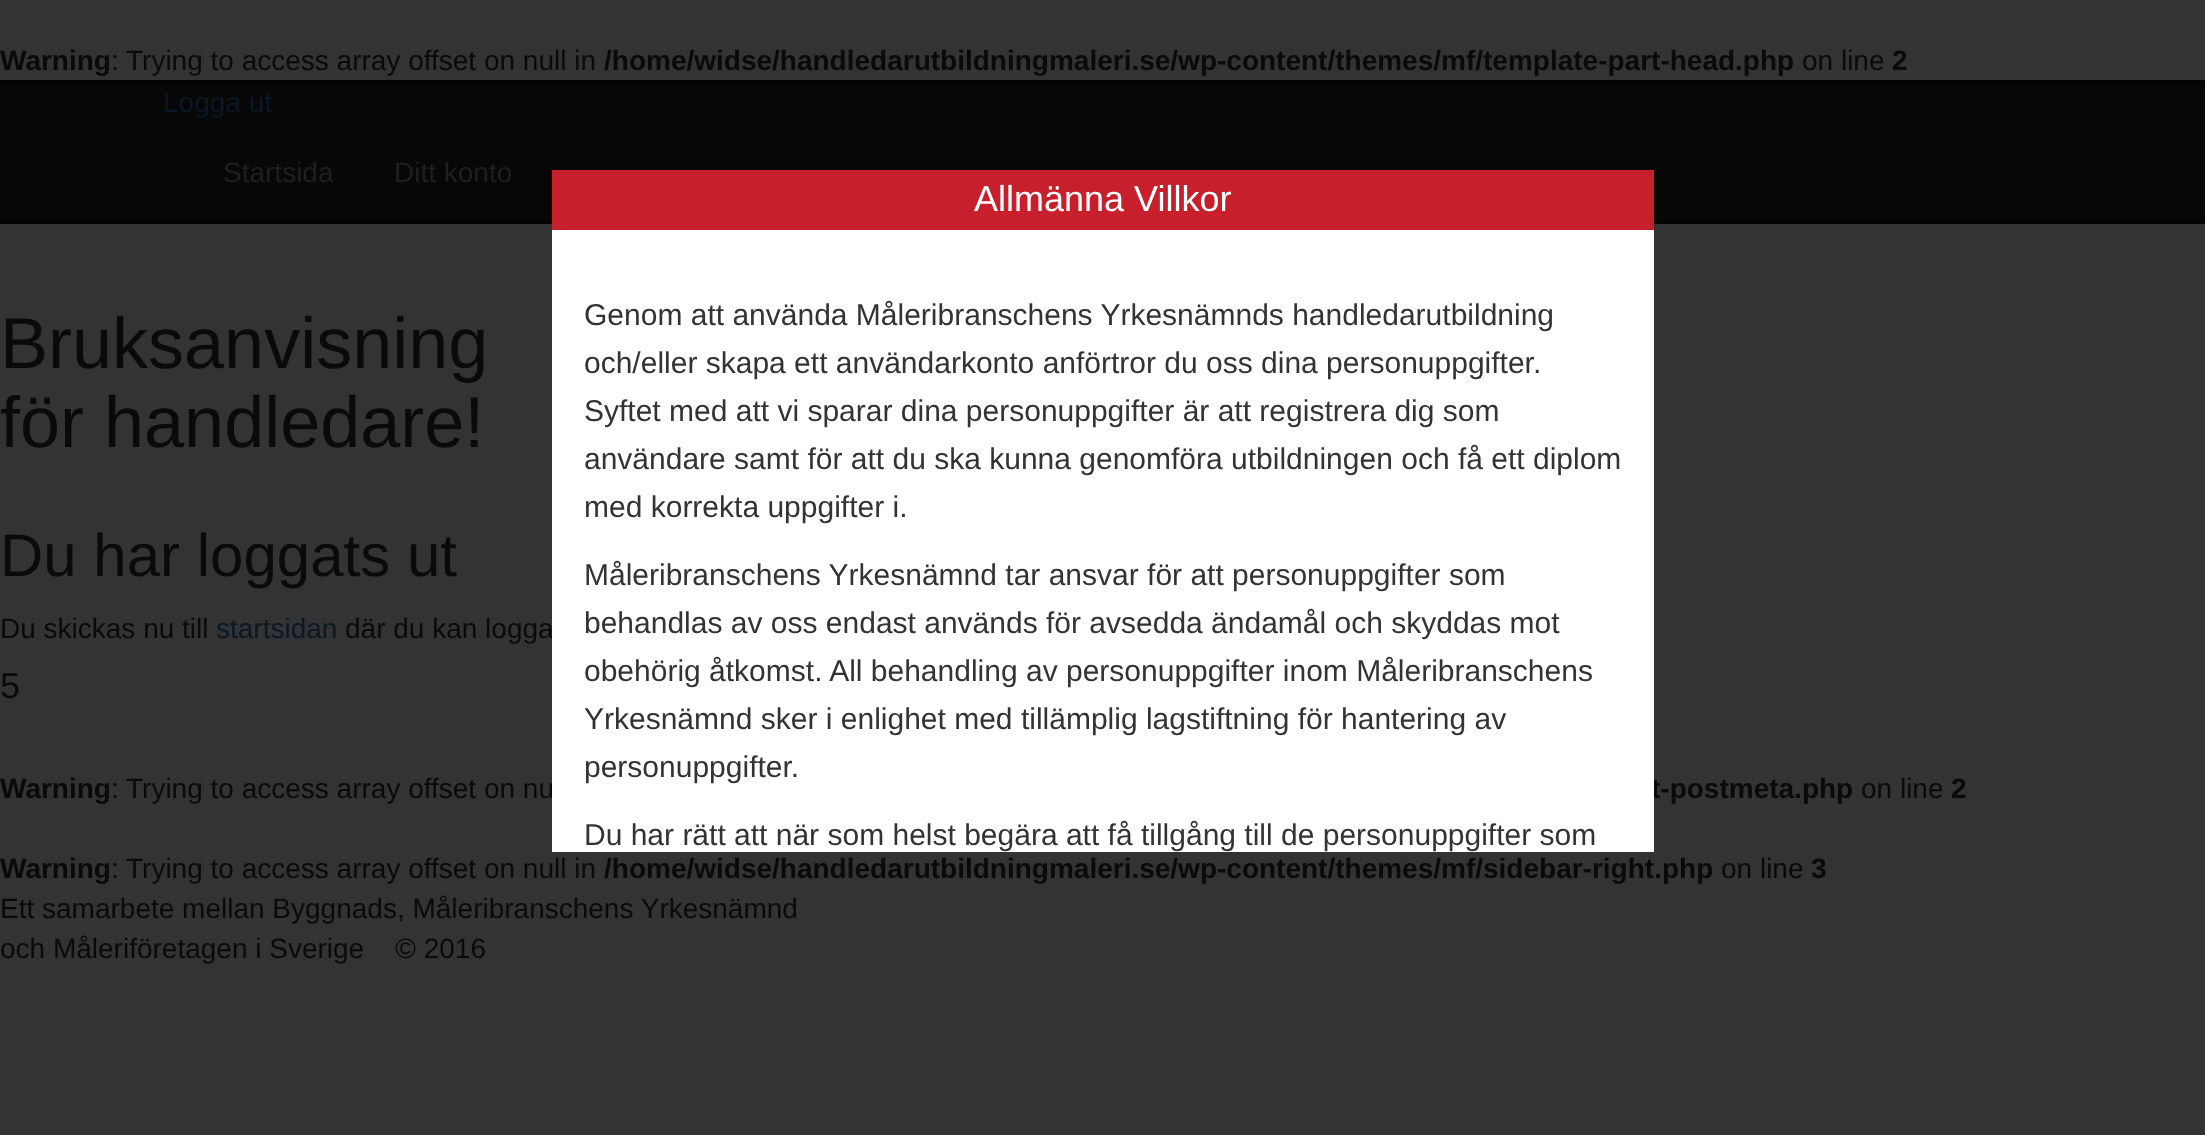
<svg xmlns="http://www.w3.org/2000/svg" xmlns:xlink="http://www.w3.org/1999/xlink" width="2205" height="1135" viewBox="0 0 2205 1135">
<style>
.cls-1{font:bold 28px Liberation Sans;fill:#0a0a0a}
.cls-2{font:28px Liberation Sans;fill:#0a0a0a}
.cls-3{font:28px Liberation Sans;fill:#0a1825}
.cls-4{font:28px Liberation Sans;fill:#1f1f1f}
.cls-5{font:60px Liberation Sans;fill:#0a0a0a}
.cls-6{font:36px Liberation Sans;fill:#0a0a0a}
.cls-7{font:36px Liberation Sans;fill:#ffffff}
.cls-8{font:72px Liberation Sans;fill:#0a0a0a}
.cls-9{font:30px Liberation Sans;fill:#333333}
</style>
<rect width="100%" height="100%" fill="#333333"/>
<rect fill="#070707" stroke="#020202" stroke-width="2" x="-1" y="81" width="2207" height="142"/>
<rect fill="#c81f2c" x="552" y="170" width="1102" height="60"/>
<text class="cls-1" x="0" y="70">Warning</text>
<text class="cls-2" x="111" y="70">:</text>
<text class="cls-2" x="126" y="70">Trying to access array offset on null in</text>
<text class="cls-1" x="604" y="70">/home/widse/handledarutbildningmaleri.se/wp-content/themes/mf/template-part-head.php</text>
<text class="cls-2" x="1802" y="70">on line</text>
<text class="cls-1" x="1892" y="70">2</text>
<text class="cls-3" x="163" y="112">Logga ut</text>
<text class="cls-4" x="223" y="182">Startsida</text>
<text class="cls-4" x="394" y="182">Ditt konto</text>
<text class="cls-5" x="0" y="576">Du har loggats ut</text>
<text class="cls-2" x="0" y="638">Du skickas nu till</text>
<text class="cls-3" x="216" y="638">startsidan</text>
<text class="cls-2" x="345" y="638">där du kan logga</text>
<text class="cls-6" x="0" y="698">5</text>
<text class="cls-7" x="974" y="211">Allmänna Villkor</text>
<text class="cls-8"><tspan x="0" y="368">Bruksanvisning</tspan><tspan x="0" y="447">för handledare!</tspan></text>
<text class="cls-1" x="0" y="798">Warning</text>
<text class="cls-2" x="111" y="798">:</text>
<text class="cls-2" x="126" y="798">Trying to access array offset on nu</text>
<text class="cls-1" x="1651" y="798">t-postmeta.php</text>
<rect fill="#ffffff" x="552" y="230" width="1102" height="622"/>
<text class="cls-9" x="584" y="845">Du har rätt att när som helst begära att få tillgång till de personuppgifter som</text>
<text class="cls-9" x="584" y="777">personuppgifter.</text>
<text class="cls-9" x="584" y="729">Yrkesnämnd sker i enlighet med tillämplig lagstiftning för hantering av</text>
<text class="cls-9" x="584" y="681">obehörig åtkomst. All behandling av personuppgifter inom Måleribranschens</text>
<text class="cls-9" x="584" y="633">behandlas av oss endast används för avsedda ändamål och skyddas mot</text>
<text class="cls-9" x="584" y="585">Måleribranschens Yrkesnämnd tar ansvar för att personuppgifter som</text>
<text class="cls-9" x="584" y="517">med korrekta uppgifter i.</text>
<text class="cls-9" x="584" y="469">användare samt för att du ska kunna genomföra utbildningen och få ett diplom</text>
<text class="cls-9" x="584" y="421">Syftet med att vi sparar dina personuppgifter är att registrera dig som</text>
<text class="cls-9" x="584" y="373">och/eller skapa ett användarkonto anförtror du oss dina personuppgifter.</text>
<text class="cls-9" x="584" y="325">Genom att använda Måleribranschens Yrkesnämnds handledarutbildning</text>
<text class="cls-2" x="1861" y="798">on line</text>
<text class="cls-1" x="1951" y="798">2</text>
<text class="cls-1" x="0" y="878">Warning</text>
<text class="cls-2" x="111" y="878">:</text>
<text class="cls-2" x="126" y="878">Trying to access array offset on null in</text>
<text class="cls-1" x="604" y="878">/home/widse/handledarutbildningmaleri.se/wp-content/themes/mf/sidebar-right.php</text>
<text class="cls-2" x="1721" y="878">on line</text>
<text class="cls-1" x="1811" y="878">3</text>
<text class="cls-2" xml:space="preserve"><tspan x="0" y="918">Ett samarbete mellan Byggnads, Måleribranschens Yrkesnämnd</tspan><tspan x="0" y="958">och Måleriföretagen i Sverige    © 2016</tspan></text>
</svg>
